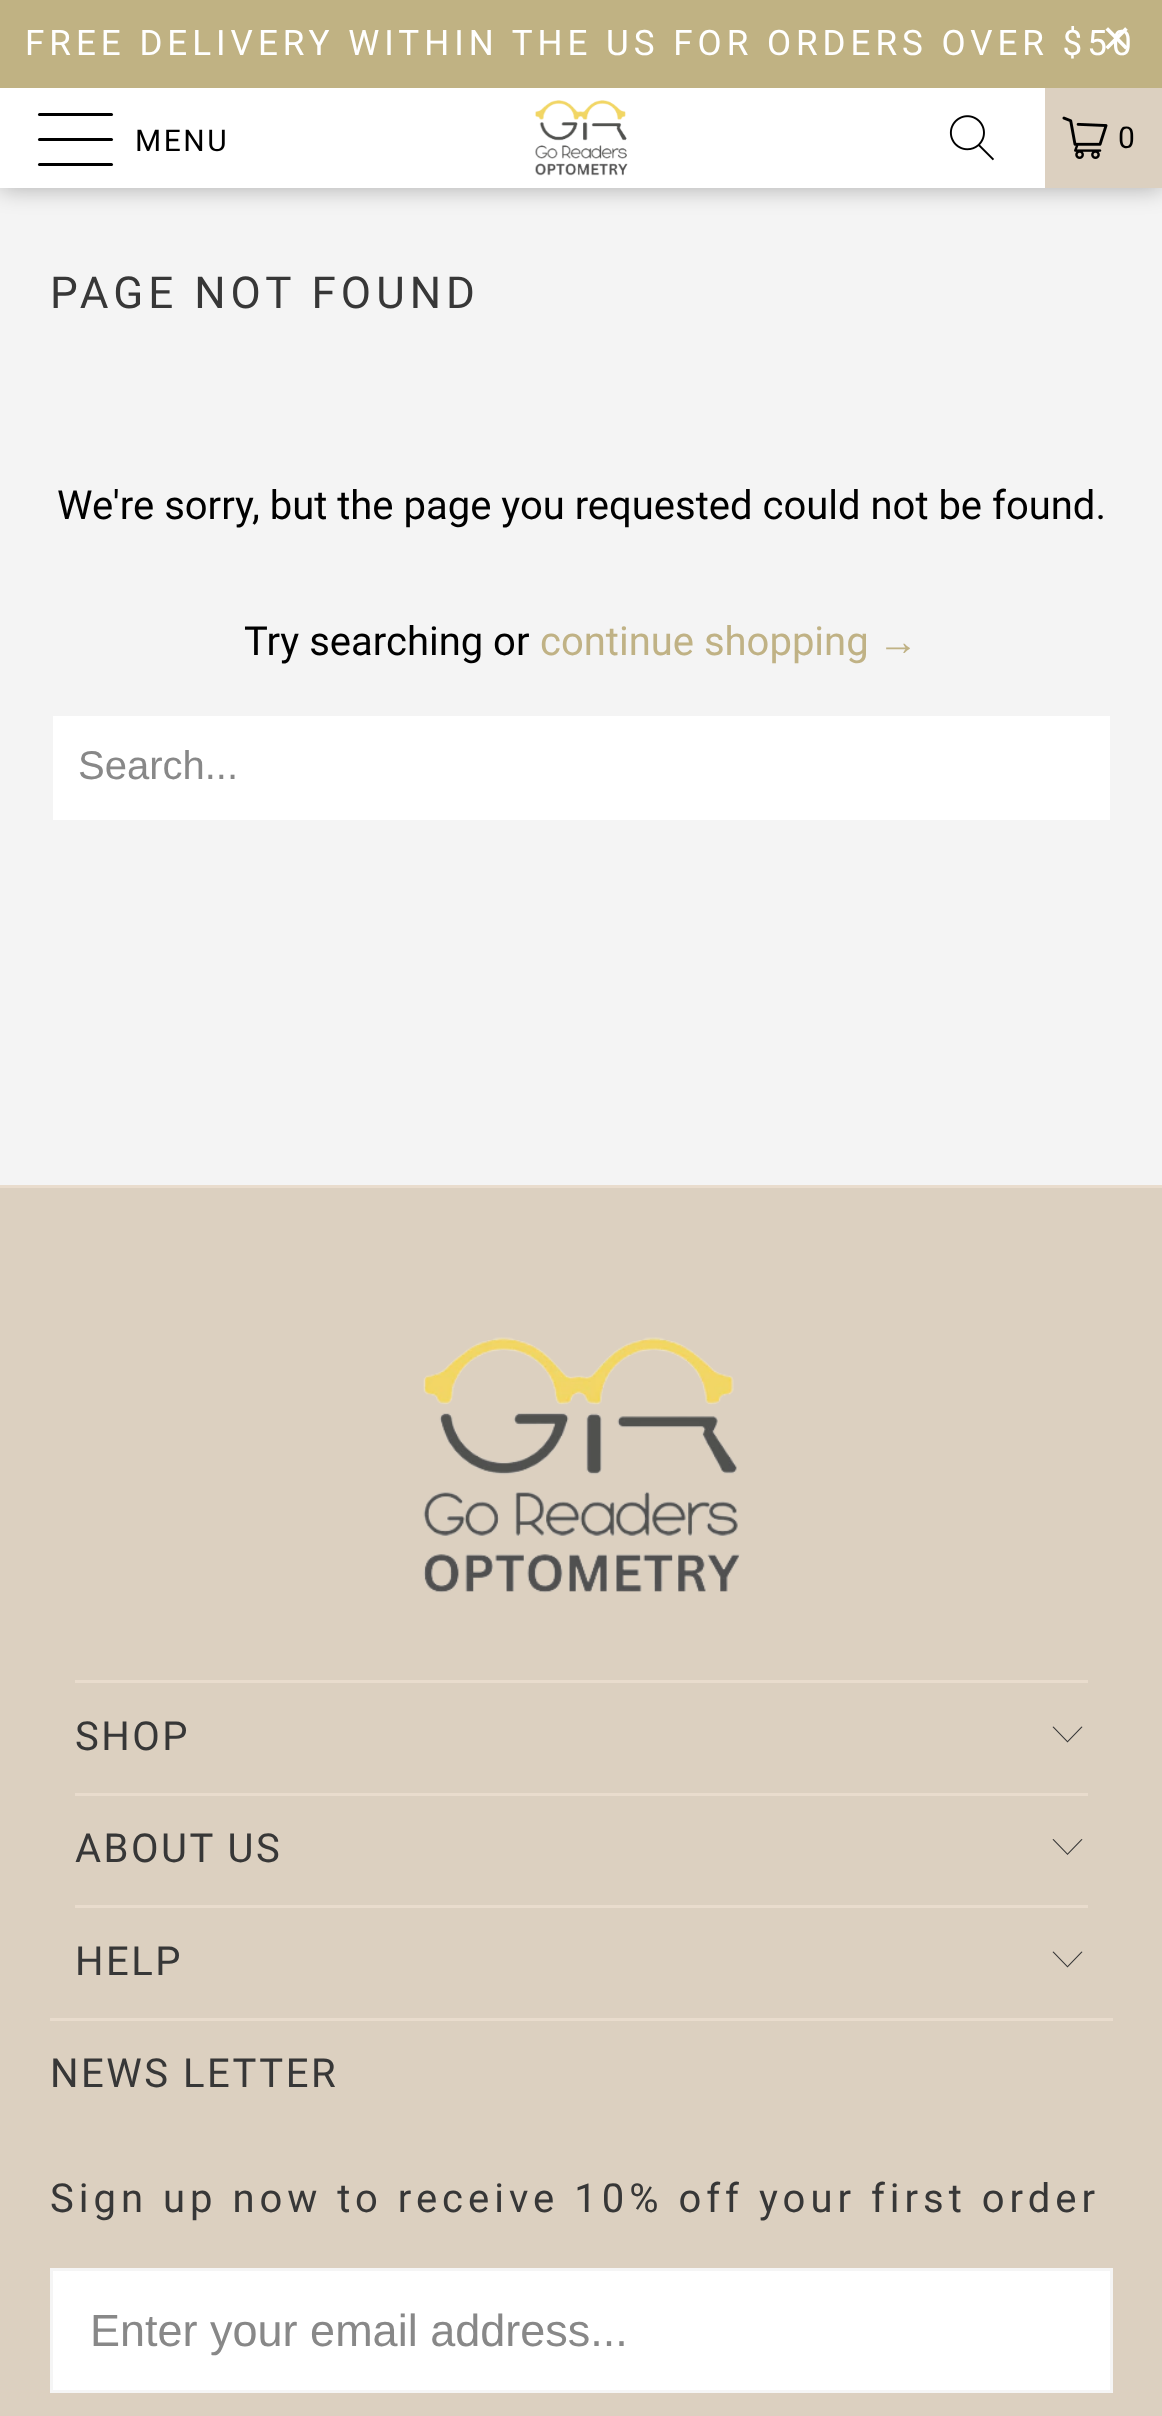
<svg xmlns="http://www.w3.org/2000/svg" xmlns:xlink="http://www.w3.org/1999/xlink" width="1162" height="2416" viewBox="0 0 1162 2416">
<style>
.cls-1{font:35px Roboto;letter-spacing:5px;fill:#ffffff}
.cls-2{font:50px Liberation Sans;letter-spacing:5px;fill:#ffffff}
.cls-3{font:30px Roboto;letter-spacing:2.5px;fill:#000000}
.cls-4{font:44px Roboto;letter-spacing:5px;fill:#373737}
.cls-5{font:40px Roboto;fill:#000000}
.cls-6{font:40px Roboto;fill:#c0b285}
.cls-7{font:40px Liberation Sans;fill:#c0b285}
.cls-8{font:40px Liberation Sans;fill:#888888}
.cls-9{font:40px Roboto;letter-spacing:2.5px;fill:#373737}
.cls-10{font:40px Roboto;letter-spacing:5px;fill:#373737}
.cls-11{font:45px Liberation Sans;fill:#888888}
</style>
<rect width="100%" height="100%" fill="#f4f4f4"/>
<rect fill="#000000" fill-opacity="0.3" filter="blur(12.5px)" x="0" y="0" width="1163" height="188"/>
<rect fill="#c0b283" x="0" y="0" width="1162" height="88"/>
<rect fill="#ffffff" x="0" y="88" width="1045" height="100"/>
<rect fill="#000000" x="38" y="113" width="75" height="3" rx="1.5"/>
<rect fill="#000000" x="38" y="138" width="75" height="3" rx="1.5"/>
<rect fill="#000000" x="38" y="163" width="75" height="3" rx="1.5"/>
<image xlink:href="image0.png" x="535" y="100" width="93" height="76"/>
<image xlink:href="image1.png" x="949" y="115" width="45" height="46"/>
<rect fill="#dcd0c0" x="1045" y="88" width="117" height="100"/>
<image xlink:href="image2.png" x="1062" y="116" width="46" height="43"/>
<rect fill="#ffffff" x="53" y="716" width="1057" height="104"/>
<rect fill="#dcd0c0" x="0" y="1188" width="1162" height="1228"/>
<rect fill="#e9dccd" x="0" y="1185" width="1162" height="3"/>
<image xlink:href="image3.png" x="423" y="1337" width="317" height="256"/>
<rect fill="#e9dccd" x="75" y="1680" width="1013" height="3"/>
<path fill="#373737" d="M1067.5 1742.5L1052.5 1727L1053.5 1726.5L1067.5 1741L1081.5 1726.5L1082.5 1727Z"/>
<rect fill="#e9dccd" x="75" y="1793" width="1013" height="3"/>
<path fill="#373737" d="M1067.5 1855L1052.5 1839.5L1053.5 1839L1067.5 1853.5L1081.5 1839L1082.5 1839.5Z"/>
<rect fill="#e9dccd" x="75" y="1905" width="1013" height="3"/>
<path fill="#373737" d="M1067.5 1967.5L1052.5 1952L1053.5 1951.5L1067.5 1966L1081.5 1951.5L1082.5 1952Z"/>
<rect fill="#e9dccd" x="50" y="2018" width="1063" height="3"/>
<rect fill="#ffffff" stroke="#f5f5f5" stroke-width="3" x="51.5" y="2269.5" width="1060" height="122"/>
<text class="cls-1" x="25" y="55">FREE DELIVERY WITHIN THE US FOR ORDERS OVER $50</text>
<text class="cls-2" x="1102" y="55">×</text>
<text class="cls-3" x="135" y="151">MENU</text>
<text class="cls-3" x="1118" y="148">0</text>
<text class="cls-4" x="50" y="308">PAGE NOT FOUND</text>
<text class="cls-5" x="57" y="519">We're sorry, but the page you requested could not be found.</text>
<text class="cls-5" x="244" y="655">Try searching or</text>
<text class="cls-6" x="540" y="655">continue shopping</text>
<text class="cls-7" x="878" y="655">→</text>
<text class="cls-8" x="78" y="779">Search...</text>
<text class="cls-9" x="75" y="1750">SHOP</text>
<text class="cls-9" x="75" y="1862">ABOUT US</text>
<text class="cls-9" x="75" y="1975">HELP</text>
<text class="cls-9" x="50" y="2087">NEWS LETTER</text>
<text class="cls-10" x="50" y="2212">Sign up now to receive 10% off your first order</text>
<text class="cls-11" x="90" y="2346">Enter your email address...</text>
</svg>
